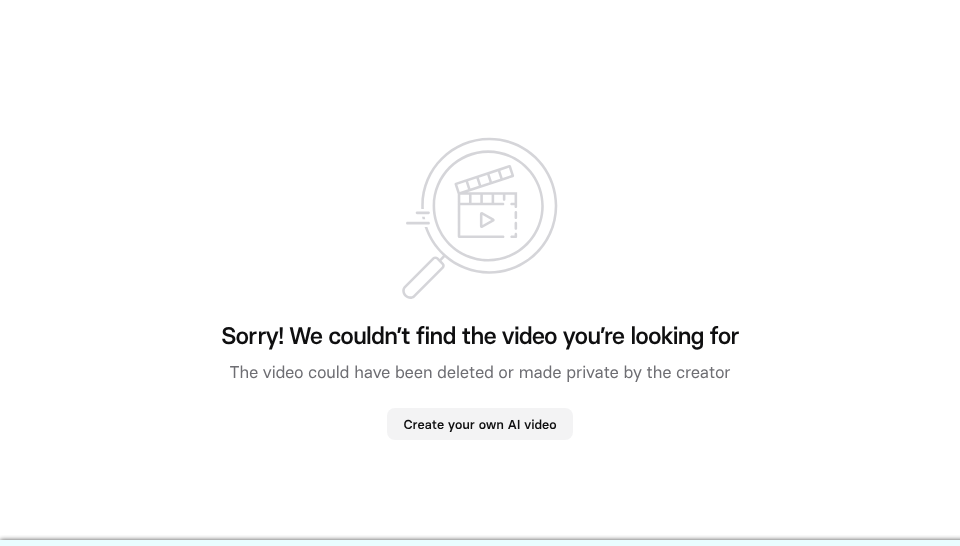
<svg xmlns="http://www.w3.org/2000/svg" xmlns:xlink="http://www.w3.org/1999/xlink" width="960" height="546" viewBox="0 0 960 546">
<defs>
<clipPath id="clip1"><rect x="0" y="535" width="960" height="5"/></clipPath>
</defs>
<rect width="100%" height="100%" fill="#ffffff"/>
<image xlink:href="image0.png" x="222" y="137" width="517" height="303"/>
<rect fill="#e9fdff" x="0" y="540" width="960" height="6"/>
<g clip-path="url(#clip1)">
<rect fill="#000000" fill-opacity="0.7" filter="blur(2.5px)" x="0" y="540" width="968" height="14"/>
</g>
</svg>
